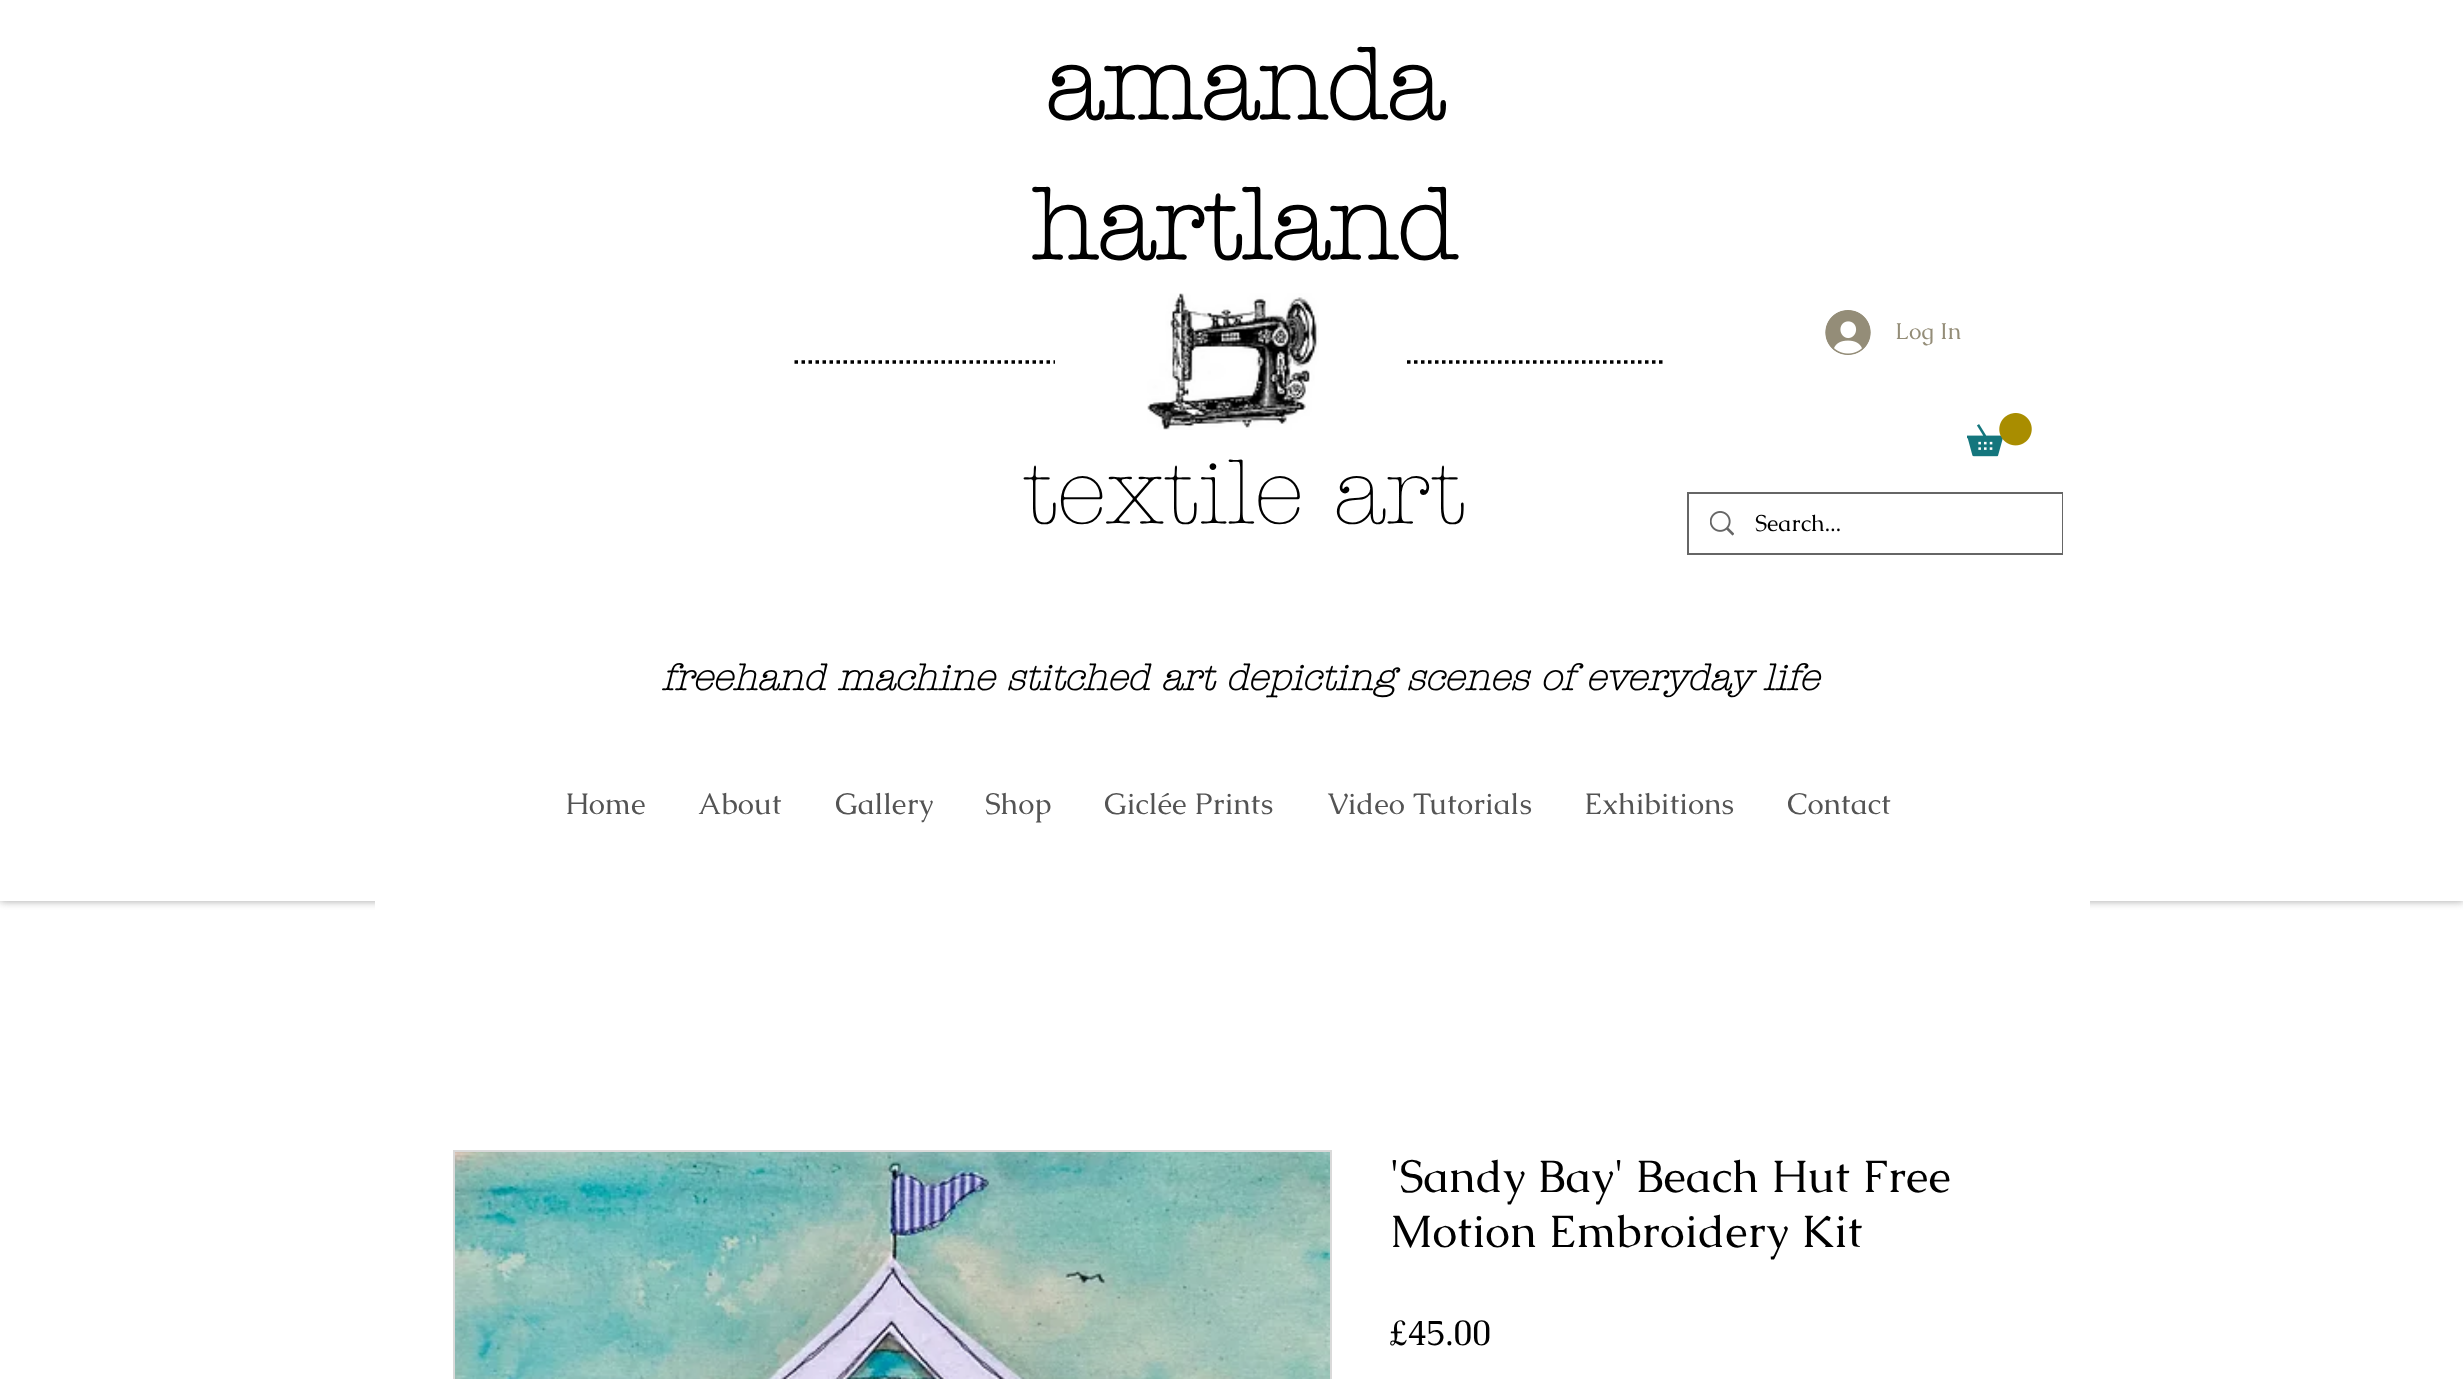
<svg xmlns="http://www.w3.org/2000/svg" xmlns:xlink="http://www.w3.org/1999/xlink" width="2463" height="1379" viewBox="0 0 2463 1379">
<style>
.cls-1{font:bold 99.75px 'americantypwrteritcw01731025';fill:#000000}
.cls-2{font:23px Caudex;fill:#948d78}
.cls-3{font:300 91px 'americantypwrteritcw01731025';fill:#000000}
.cls-4{font:23px Caudex;fill:#000000}
.cls-5{font:italic bold 36.75px 'americantypwrteritcw01731025';fill:#000000}
.cls-6{font:29.75px Caudex;fill:#545454}
.cls-7{font:45.5px Caudex;fill:#000000}
.cls-8{font:35px Caudex;fill:#000000}
</style>
<defs>
<clipPath id="clip1"><rect x="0" y="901" width="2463" height="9"/></clipPath>
</defs>
<rect width="100%" height="100%" fill="#ffffff"/>
<g clip-path="url(#clip1)">
<rect fill="#7a7a7a" fill-opacity="0.7" filter="blur(4.5px)" x="0" y="0" width="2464" height="901"/>
</g>
<image xlink:href="image0.png" x="1147" y="293" width="172" height="137"/>
<image xlink:href="image1.png" x="1825" y="310" width="46" height="45"/>
<path fill="none" stroke="#000000" stroke-width="3.5" stroke-dasharray="3.5 3.5" d="M794.5 362H1055"/>
<path fill="none" stroke="#000000" stroke-width="3.5" stroke-dasharray="3.5 3.5" d="M1407 362H1662.5"/>
<image xlink:href="image2.png" x="1967" y="413" width="65" height="44"/>
<rect fill="none" stroke="#666666" stroke-width="2" x="1688" y="493" width="374" height="61"/>
<rect fill="#ffffff" x="2061" y="494" width="1" height="59"/>
<image xlink:href="image3.png" x="1710" y="511" width="24" height="25"/>
<rect fill="#ffffff" x="375" y="901" width="1715" height="9"/>
<rect fill="none" stroke="#d9d9d9" stroke-width="2" x="454" y="1151" width="877" height="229"/>
<image xlink:href="image4.png" x="455" y="1152" width="875" height="227"/>
<text class="cls-1" x="1045" y="119">amanda</text>
<text class="cls-1" x="1031" y="259">hartland</text>
<text class="cls-2" x="1895" y="339">Log In</text>
<text class="cls-3" x="1023" y="523">textile art</text>
<text class="cls-4" x="1755" y="531">Search...</text>
<text class="cls-5" x="661" y="690">freehand machine stitched art depicting scenes of everyday life</text>
<text class="cls-6" x="565" y="814">Home</text>
<text class="cls-6" x="698" y="814">About</text>
<text class="cls-6" x="835" y="814">Gallery</text>
<text class="cls-6" x="985" y="814">Shop</text>
<text class="cls-6" x="1104" y="814">Giclée Prints</text>
<text class="cls-6" x="1327" y="814">Video Tutorials</text>
<text class="cls-6" x="1584" y="814">Exhibitions</text>
<text class="cls-6" x="1787" y="814">Contact</text>
<text class="cls-7"><tspan x="1390" y="1192">'Sandy Bay' Beach Hut Free</tspan><tspan x="1390" y="1247">Motion Embroidery Kit</tspan></text>
<text class="cls-8" x="1390" y="1345">£45.00</text>
</svg>
